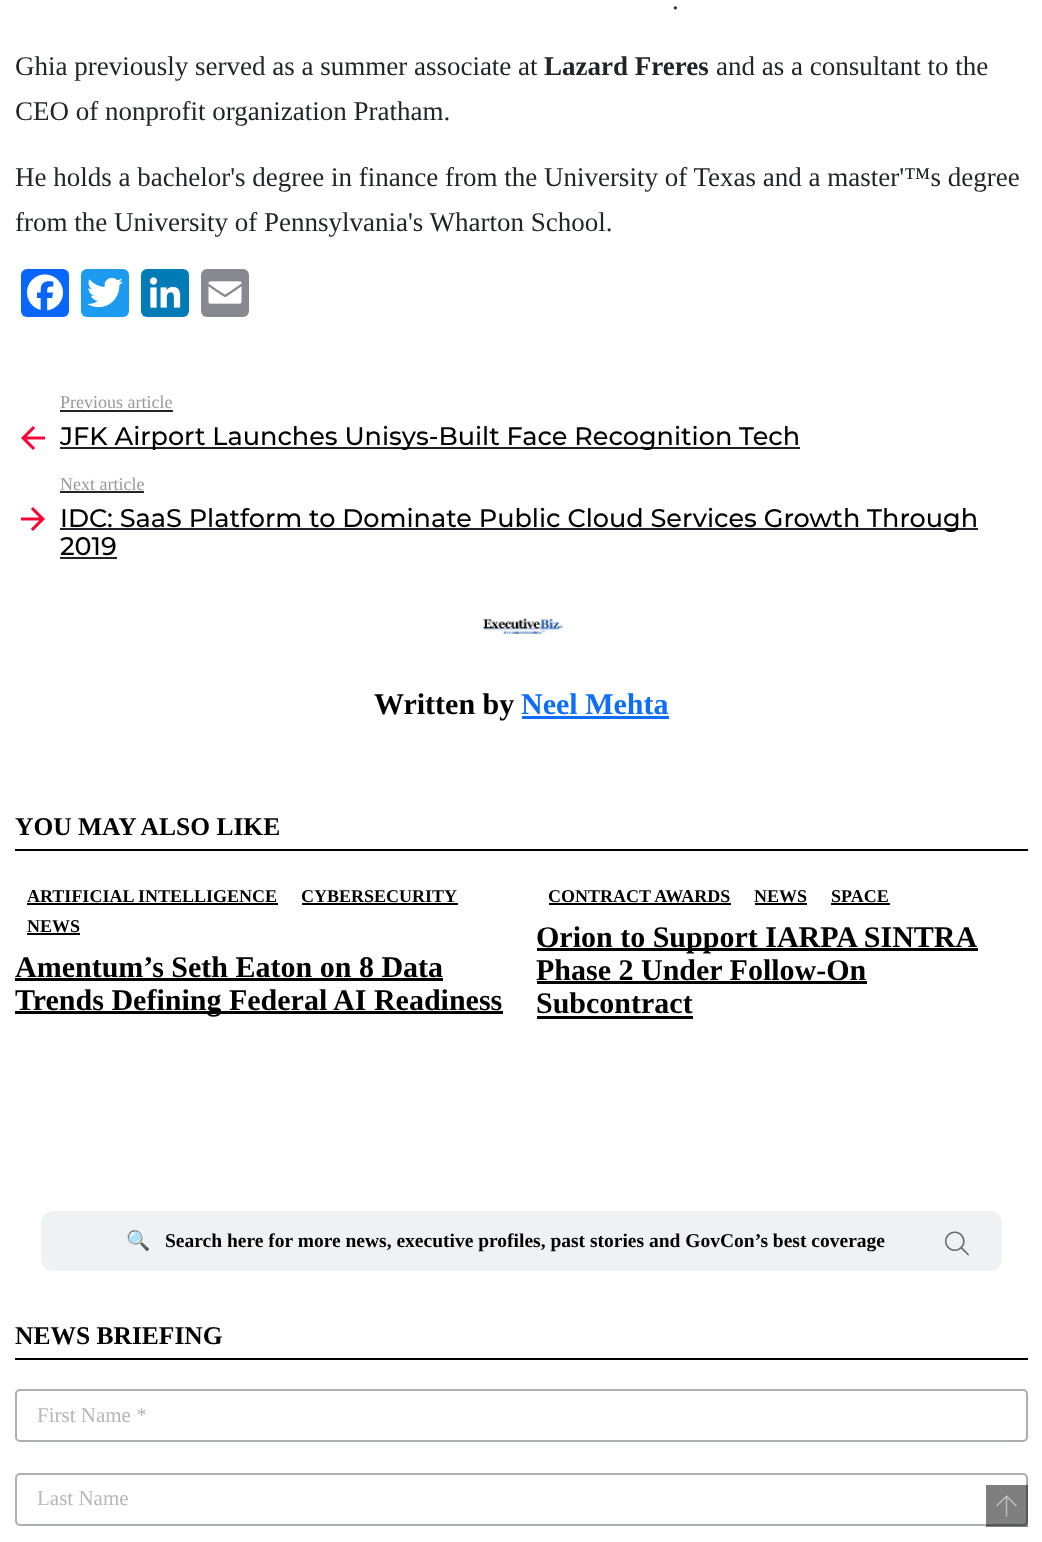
<svg xmlns="http://www.w3.org/2000/svg" xmlns:xlink="http://www.w3.org/1999/xlink" width="1042" height="1542" viewBox="0 0 1042 1542">
<style>
.cls-1{font:27px Liberation Serif;fill:#212529}
.cls-2{font:bold 27px Liberation Serif;fill:#212529}
.cls-3{font:18px Liberation Serif;fill:#999999}
.cls-4{font:500 25.5px Montserrat;fill:#000000}
.cls-5{font:bold 30px Liberation Serif;fill:#000000}
.cls-6{font:bold 30px Liberation Serif;fill:#0d6efd}
.cls-7{font:bold 25.5px Liberation Serif;fill:#000000}
.cls-8{font:bold 18px Liberation Serif;fill:#000000}
.cls-9{font:bold 19.5px Noto Color Emoji;fill:#000000}
.cls-10{font:bold 19.5px Liberation Serif;fill:#000000}
.cls-11{font:21px Liberation Serif;fill:#b6b7b8}
</style>
<rect width="100%" height="100%" fill="#ffffff"/>
<rect fill="#0866ff" x="21" y="269" width="48" height="48" rx="6"/>
<image xlink:href="image0.png" x="27" y="274" width="36" height="37"/>
<rect fill="#1d9bf0" x="81" y="269" width="48" height="48" rx="6"/>
<image xlink:href="image1.png" x="87" y="277" width="36" height="31"/>
<rect fill="#007bb5" x="141" y="269" width="48" height="48" rx="6"/>
<image xlink:href="image2.png" x="149" y="277" width="32" height="31"/>
<rect fill="#888990" x="201" y="269" width="48" height="48" rx="6"/>
<image xlink:href="image3.png" x="208" y="281" width="34" height="23"/>
<rect fill="#212529" x="60" y="410" width="113" height="2"/>
<image xlink:href="image4.png" x="21" y="426" width="25" height="24"/>
<rect fill="#212529" x="60" y="447" width="740" height="2"/>
<rect fill="#212529" x="60" y="491" width="84" height="2"/>
<image xlink:href="image5.png" x="20" y="507" width="25" height="24"/>
<rect fill="#212529" x="60" y="528" width="918" height="2"/>
<rect fill="#212529" x="60" y="557" width="57" height="2"/>
<image xlink:href="image6.png" x="483" y="618" width="80" height="16"/>
<rect fill="#0d6efd" x="522" y="716" width="147" height="3"/>
<rect fill="#000000" x="15" y="849" width="1013" height="2"/>
<rect fill="#000000" x="27" y="903" width="251" height="2"/>
<rect fill="#000000" x="302" y="903" width="156" height="2"/>
<rect fill="#000000" x="27" y="933" width="53" height="2"/>
<rect fill="#000000" x="15" y="978" width="428" height="3"/>
<rect fill="#000000" x="15" y="1011" width="488" height="3"/>
<rect fill="#000000" x="549" y="903" width="182" height="2"/>
<rect fill="#000000" x="755" y="903" width="52" height="2"/>
<rect fill="#000000" x="831" y="903" width="59" height="2"/>
<rect fill="#000000" x="537" y="948" width="441" height="3"/>
<rect fill="#000000" x="537" y="981" width="330" height="3"/>
<rect fill="#000000" x="537" y="1016" width="156" height="3"/>
<rect fill="#eff2f5" x="41" y="1211" width="961" height="60" rx="12"/>
<image xlink:href="image7.png" x="945" y="1231" width="24" height="25"/>
<rect fill="#000000" x="15" y="1358" width="1013" height="2"/>
<rect fill="none" stroke="#abb0b2" stroke-width="2" x="16" y="1390" width="1011" height="51" rx="4"/>
<rect fill="none" stroke="#abb0b2" stroke-width="2" x="16" y="1474" width="1011" height="51" rx="4"/>
<rect fill="#000000" fill-opacity="0.5" x="986" y="1485" width="42" height="42"/>
<image xlink:href="image8.png" x="996" y="1495" width="21" height="22"/>
<text class="cls-1" x="672" y="9">.</text>
<text class="cls-1" x="15" y="75">Ghia previously served as a summer associate at</text>
<text class="cls-2" x="544" y="75">Lazard Freres</text>
<text class="cls-1" x="716" y="75">and as a consultant to the</text>
<text class="cls-1" x="15" y="120">CEO of nonprofit organization Pratham.</text>
<text class="cls-1"><tspan x="15" y="186">He holds a bachelor's degree in finance from the University of Texas and a master'™s degree</tspan><tspan x="15" y="231">from the University of Pennsylvania's Wharton School.</tspan></text>
<text class="cls-3" x="60" y="408">Previous article</text>
<text class="cls-4" x="60" y="445">JFK Airport Launches Unisys-Built Face Recognition Tech</text>
<text class="cls-3" x="60" y="490">Next article</text>
<text class="cls-4"><tspan x="60" y="527">IDC: SaaS Platform to Dominate Public Cloud Services Growth Through</tspan><tspan x="60" y="555">2019</tspan></text>
<text class="cls-5" x="374" y="714">Written by</text>
<text class="cls-6" x="521" y="714">Neel Mehta</text>
<text class="cls-7" x="15" y="835">YOU MAY ALSO LIKE</text>
<text class="cls-8" x="27" y="902">ARTIFICIAL INTELLIGENCE</text>
<text class="cls-8" x="301" y="902">CYBERSECURITY</text>
<text class="cls-8" x="27" y="932">NEWS</text>
<text class="cls-5"><tspan x="15" y="977">Amentum’s Seth Eaton on 8 Data</tspan><tspan x="15" y="1010">Trends Defining Federal AI Readiness</tspan></text>
<text class="cls-8" x="548" y="902">CONTRACT AWARDS</text>
<text class="cls-8" x="754" y="902">NEWS</text>
<text class="cls-8" x="831" y="902">SPACE</text>
<text class="cls-5"><tspan x="536" y="947">Orion to Support IARPA SINTRA</tspan><tspan x="536" y="980">Phase 2 Under Follow-On</tspan><tspan x="536" y="1013">Subcontract</tspan></text>
<text class="cls-9" x="126" y="1247">🔍</text>
<text class="cls-10" x="165" y="1247">Search here for more news, executive profiles, past stories and GovCon’s best coverage</text>
<text class="cls-7" x="15" y="1344">NEWS BRIEFING</text>
<text class="cls-11" x="37" y="1422">First Name *</text>
<text class="cls-11" x="37" y="1505">Last Name</text>
</svg>
